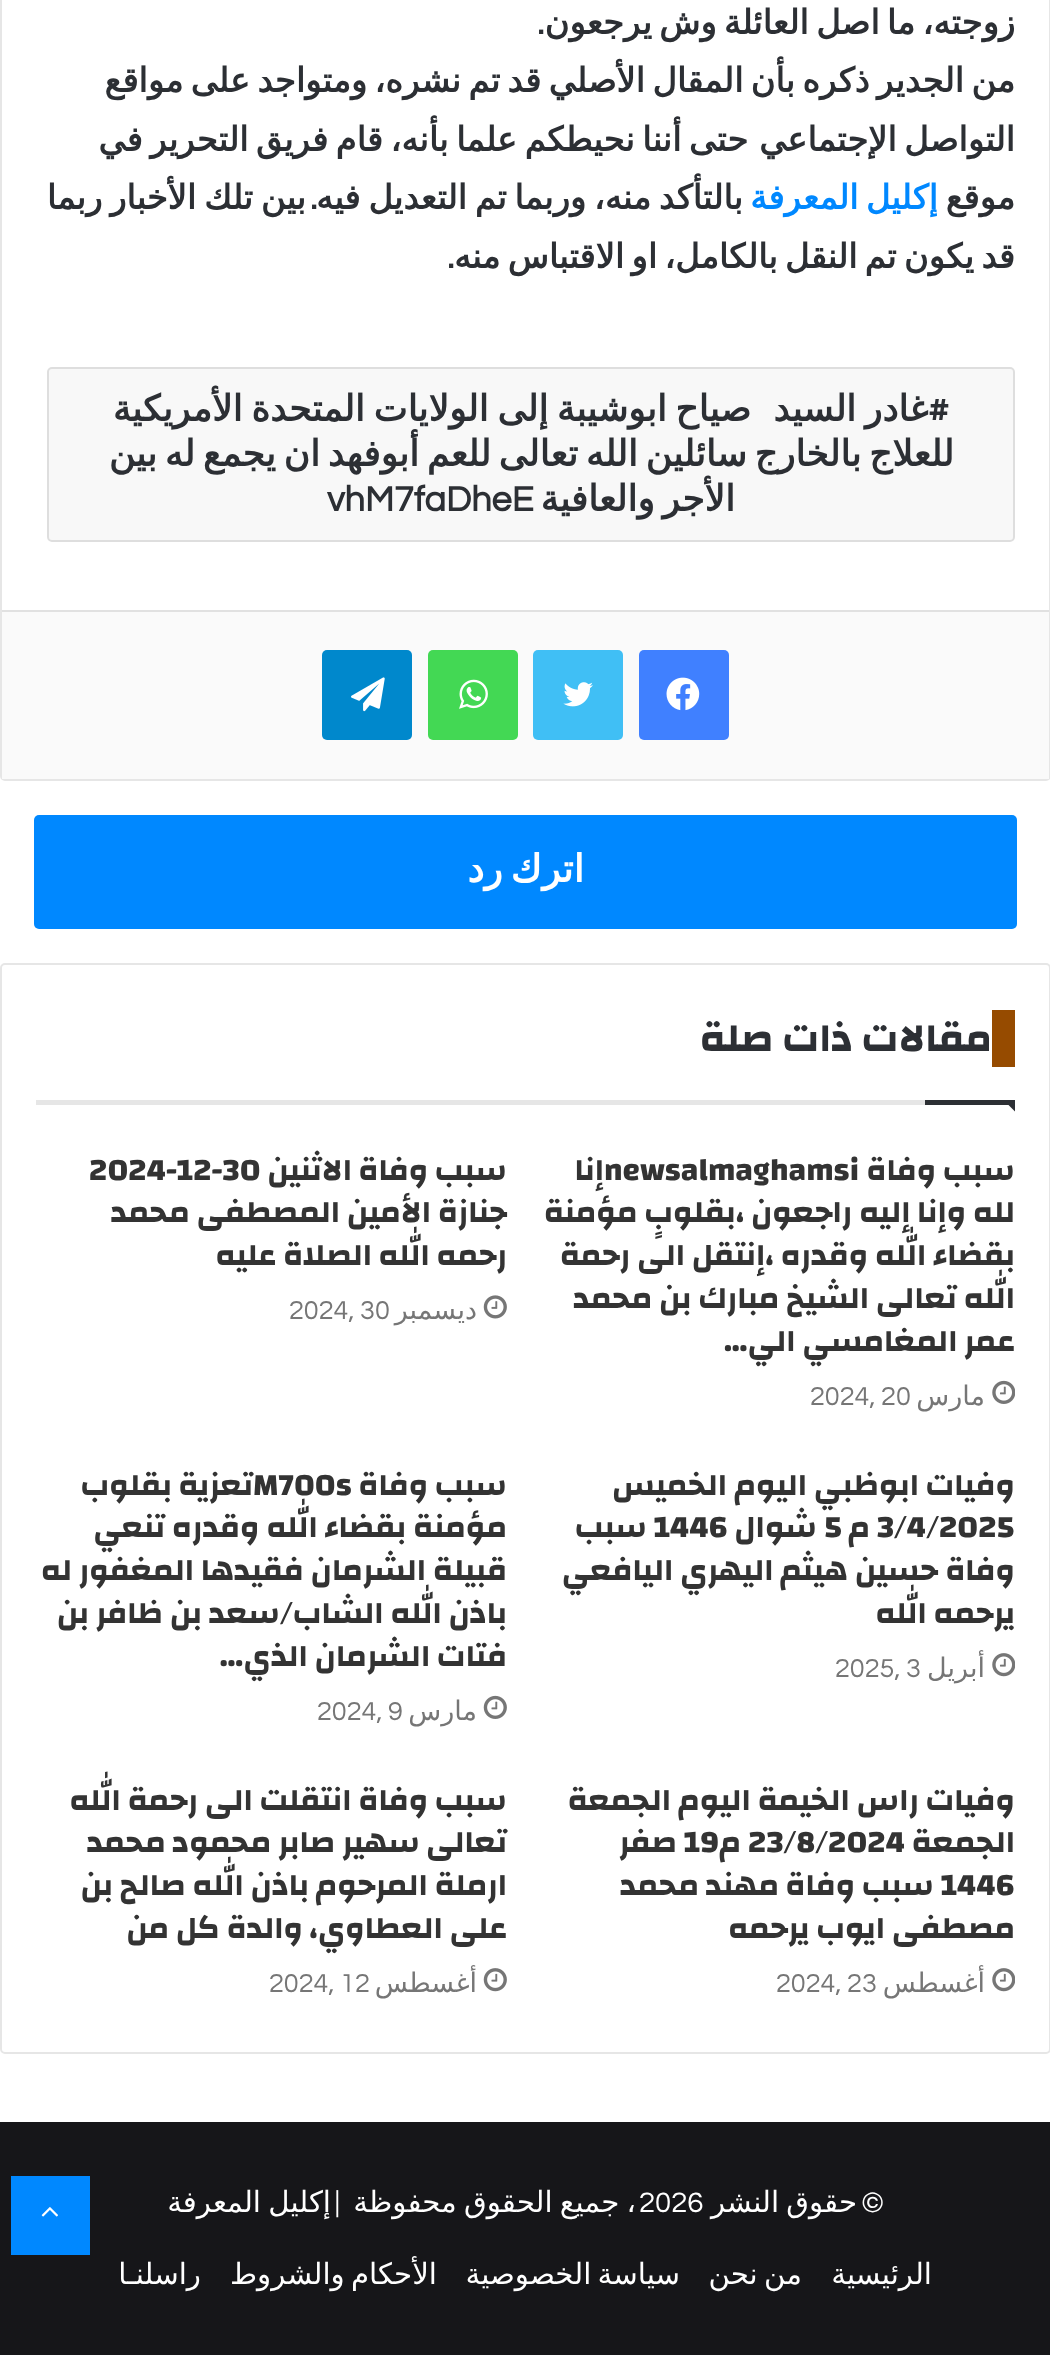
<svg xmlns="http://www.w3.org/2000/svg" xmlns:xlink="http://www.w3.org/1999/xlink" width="1050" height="2355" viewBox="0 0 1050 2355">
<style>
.cls-1{font:bold 33.75px DejaVu Sans;direction:rtl;fill:#2c2f34}
.cls-2{font:bold 33.75px Questrial;direction:rtl;fill:#2c2f34}
.cls-3{font:bold 33.75px DejaVu Sans;direction:rtl;fill:#0088ff}
.cls-4{font:bold 36px Questrial;fill:#2c2f34}
.cls-5{font:bold 36px DejaVu Sans;direction:rtl;fill:#2c2f34}
.cls-6{font:bold 38px DejaVu Sans;direction:rtl;fill:#ffffff}
.cls-7{font:bold 40.5px Changa;direction:rtl;fill:#2c2f34}
.cls-8{font:bold 31.5px Changa;direction:rtl;fill:#333333}
.cls-9{font:bold 31.5px Changa;fill:#333333}
.cls-10{font:27px DejaVu Sans;direction:rtl;fill:#767676}
.cls-11{font:27px Questrial;fill:#767676}
.cls-12{font:29.25px Questrial;direction:rtl;fill:#ffffff}
.cls-13{font:29.25px DejaVu Sans;direction:rtl;fill:#ffffff}
.cls-14{font:29.25px Questrial;fill:#ffffff}
</style>
<rect width="100%" height="100%" fill="#ffffff"/>
<rect fill="none" stroke="#e6e6e6" stroke-width="2" x="1" y="-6" width="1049" height="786" rx="4"/>
<rect fill="#f8f8f8" x="47" y="367" width="968" height="175" rx="5"/>
<rect fill="none" stroke="#000000" stroke-opacity="0.1" stroke-width="2" x="48" y="368" width="966" height="173" rx="4"/>
<rect fill="#fafafa" x="2" y="612" width="1047" height="167"/>
<rect fill="#e1e1e1" x="2" y="610" width="1047" height="2"/>
<rect fill="#4080ff" x="639" y="650" width="90" height="90" rx="5"/>
<image xlink:href="image0.png" x="666" y="677" width="34" height="34"/>
<rect fill="#40bff5" x="533" y="650" width="90" height="90" rx="5"/>
<image xlink:href="image1.png" x="563" y="682" width="30" height="25"/>
<rect fill="#43d854" x="428" y="650" width="90" height="90" rx="5"/>
<image xlink:href="image2.png" x="459" y="679" width="29" height="30"/>
<rect fill="#0088cc" x="322" y="650" width="90" height="90" rx="5"/>
<image xlink:href="image3.png" x="351" y="677" width="34" height="35"/>
<rect fill="#0088ff" x="34" y="815" width="983" height="114" rx="5"/>
<rect fill="none" stroke="#e6e6e6" stroke-width="2" x="1" y="964" width="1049" height="1089" rx="4"/>
<rect fill="#e6e6e6" x="36" y="1100" width="889" height="5"/>
<rect fill="#964b00" x="992" y="1010" width="23" height="57"/>
<path fill="#2c2f34" d="M1003.5 1100H1015V1111.5Z"/>
<rect fill="#2c2f34" x="925" y="1100" width="90" height="5"/>
<image xlink:href="image4.png" x="992" y="1380" width="23" height="24"/>
<image xlink:href="image5.png" x="483" y="1295" width="24" height="24"/>
<image xlink:href="image6.png" x="992" y="1653" width="23" height="24"/>
<image xlink:href="image7.png" x="483" y="1695" width="24" height="24"/>
<image xlink:href="image6.png" x="992" y="1968" width="23" height="24"/>
<image xlink:href="image8.png" x="483" y="1968" width="24" height="24"/>
<rect fill="#161619" x="0" y="2122" width="1050" height="233"/>
<rect fill="#0088ff" x="11" y="2176" width="79" height="79"/>
<image xlink:href="image9.png" x="41" y="2207" width="17" height="10"/>
<text class="cls-1" x="1015" y="34" word-spacing="-3.5">زوجته، ما اصل العائلة وش يرجعون</text>
<text class="cls-2" x="544" y="34">.</text>
<text class="cls-1" x="1015" y="92" word-spacing="-3.5">من الجدير ذكره بأن المقال الأصلي قد تم نشره، ومتواجد على مواقع</text>
<text class="cls-1" x="748" y="151" word-spacing="-3.25">حتى أننا نحيطكم علما بأنه، قام فريق التحرير في</text>
<text class="cls-1"><tspan x="1015" y="151" word-spacing="-3.25">التواصل الإجتماعي</tspan><tspan x="1015" y="209">موقع</tspan></text>
<text class="cls-3" x="938" y="209" word-spacing="-3.5">إكليل المعرفة</text>
<text class="cls-1" x="743" y="209" word-spacing="-3">بالتأكد منه، وربما تم التعديل فيه</text>
<text class="cls-1" x="306" y="209" word-spacing="-3">بين تلك الأخبار ربما</text>
<text class="cls-2" x="317" y="209">.</text>
<text class="cls-1" x="1015" y="268" word-spacing="-3.5">قد يكون تم النقل بالكامل، او الاقتباس منه</text>
<text class="cls-2" x="454" y="268">.</text>
<text class="cls-4" x="928" y="421">#</text>
<text class="cls-5" x="928" y="421" word-spacing="-2.75">غادر السيد</text>
<text class="cls-5" x="751" y="421" word-spacing="-2.75">صياح ابوشيبة إلى الولايات المتحدة الأمريكية</text>
<text class="cls-5" x="954" y="466" word-spacing="-3.75">للعلاج بالخارج سائلين الله تعالى للعم أبوفهد ان يجمع له بين</text>
<text class="cls-5" x="735" y="511" word-spacing="-3.75">الأجر والعافية</text>
<text class="cls-4" x="327" y="511">vhM7faDheE</text>
<text class="cls-6" x="584" y="882" word-spacing="-4">اترك رد</text>
<text class="cls-7" x="992" y="1051">مقالات ذات صلة</text>
<text class="cls-8" x="1015" y="1180">سبب وفاة</text>
<text class="cls-9" x="604" y="1180">newsalmaghamsi</text>
<text class="cls-8" x="604" y="1180">إنا</text>
<text class="cls-8"><tspan x="1015" y="1222">لله وإنا إليه راجعون ،بقلوبٍ مؤمنة</tspan><tspan x="1015" y="1265">بقضاء الله وقدره ،إنتقل الى رحمة</tspan><tspan x="1015" y="1308">الله تعالى الشيخ مبارك بن محمد</tspan><tspan x="1015" y="1351">عمر المغامسي الي…</tspan></text>
<text class="cls-10" x="985" y="1405">مارس</text>
<text class="cls-11" x="810" y="1405">2024, 20</text>
<text class="cls-8" x="507" y="1180">سبب وفاة</text>
<text class="cls-8" x="352" y="1180">الاثنين</text>
<text class="cls-9" x="89" y="1180">2024-12-30</text>
<text class="cls-8"><tspan x="507" y="1222">جنازة الأمين المصطفى محمد</tspan><tspan x="507" y="1265">رحمه الله</tspan></text>
<text class="cls-8" x="372" y="1265">الصلاة عليه</text>
<text class="cls-10" x="477" y="1319">ديسمبر</text>
<text class="cls-11" x="289" y="1319">2024, 30</text>
<text class="cls-8" x="1015" y="1495">وفيات</text>
<text class="cls-8" x="919" y="1495">ابوظبي اليوم</text>
<text class="cls-8" x="727" y="1495">الخميس</text>
<text class="cls-9" x="877" y="1537">3/4/2025</text>
<text class="cls-8" x="870" y="1537">م</text>
<text class="cls-9" x="824" y="1537">5</text>
<text class="cls-8" x="817" y="1537">شوال</text>
<text class="cls-9" x="654" y="1537">1446</text>
<text class="cls-8" x="647" y="1537">سبب</text>
<text class="cls-8" x="1015" y="1580">وفاة</text>
<text class="cls-8" x="938" y="1580">حسين هيثم اليهري اليافعي</text>
<text class="cls-8" x="1015" y="1623">يرحمه الله</text>
<text class="cls-10" x="985" y="1677">أبريل</text>
<text class="cls-11" x="835" y="1677">2025, 3</text>
<text class="cls-8" x="507" y="1495">سبب وفاة</text>
<text class="cls-9" x="253" y="1495">M700s</text>
<text class="cls-8" x="253" y="1495">تعزية</text>
<text class="cls-8" x="172" y="1495">بقلوب</text>
<text class="cls-8"><tspan x="507" y="1537">مؤمنة بقضاء الله وقدره تنعي</tspan><tspan x="507" y="1580">قبيلة الشرمان فقيدها المغفور له</tspan><tspan x="507" y="1623">باذن الله الشاب/سعد بن ظافر بن</tspan><tspan x="507" y="1666">فتات الشرمان الذي…</tspan></text>
<text class="cls-10" x="477" y="1720">مارس</text>
<text class="cls-11" x="317" y="1720">2024, 9</text>
<text class="cls-8" x="1015" y="1810">وفيات</text>
<text class="cls-8" x="919" y="1810">راس الخيمة اليوم</text>
<text class="cls-8" x="671" y="1810">الجمعة</text>
<text class="cls-8" x="1015" y="1852">الجمعة</text>
<text class="cls-9" x="748" y="1852">23/8/2024</text>
<text class="cls-8" x="741" y="1852">م</text>
<text class="cls-9" x="684" y="1852">19</text>
<text class="cls-8" x="677" y="1852">صفر</text>
<text class="cls-9" x="941" y="1895">1446</text>
<text class="cls-8" x="934" y="1895">سبب وفاة</text>
<text class="cls-8" x="779" y="1895">مهند محمد</text>
<text class="cls-8" x="1015" y="1938">مصطفى ايوب يرحمه</text>
<text class="cls-10" x="985" y="1992">أغسطس</text>
<text class="cls-11" x="776" y="1992">2024, 23</text>
<text class="cls-8"><tspan x="507" y="1810">سبب وفاة انتقلت الى رحمة الله</tspan><tspan x="507" y="1852">تعالى</tspan></text>
<text class="cls-8" x="420" y="1852">سهير صابر محمود محمد</text>
<text class="cls-8"><tspan x="507" y="1895">ارملة المرحوم باذن الله صالح بن</tspan><tspan x="507" y="1938">على العطاوي،</tspan></text>
<text class="cls-8" x="303" y="1938">والدة كل من</text>
<text class="cls-10" x="477" y="1992">أغسطس</text>
<text class="cls-11" x="269" y="1992">2024, 12</text>
<text class="cls-12" x="884" y="2212">©</text>
<text class="cls-13" x="857" y="2212" word-spacing="-2">حقوق النشر</text>
<text class="cls-14" x="639" y="2212">2026</text>
<text class="cls-13" x="636" y="2212" word-spacing="-2">، جميع الحقوق محفوظة</text>
<text class="cls-12" x="340" y="2212">|</text>
<text class="cls-13" x="331" y="2212" word-spacing="-2">إكليل المعرفة</text>
<text class="cls-13" x="932" y="2284">الرئيسية</text>
<text class="cls-13" x="802" y="2284" word-spacing="-3">من نحن</text>
<text class="cls-13" x="680" y="2284" word-spacing="-3">سياسة الخصوصية</text>
<text class="cls-13" x="437" y="2284" word-spacing="-3">الأحكام والشروط</text>
<text class="cls-13" x="201" y="2284">راسلنـا</text>
</svg>
